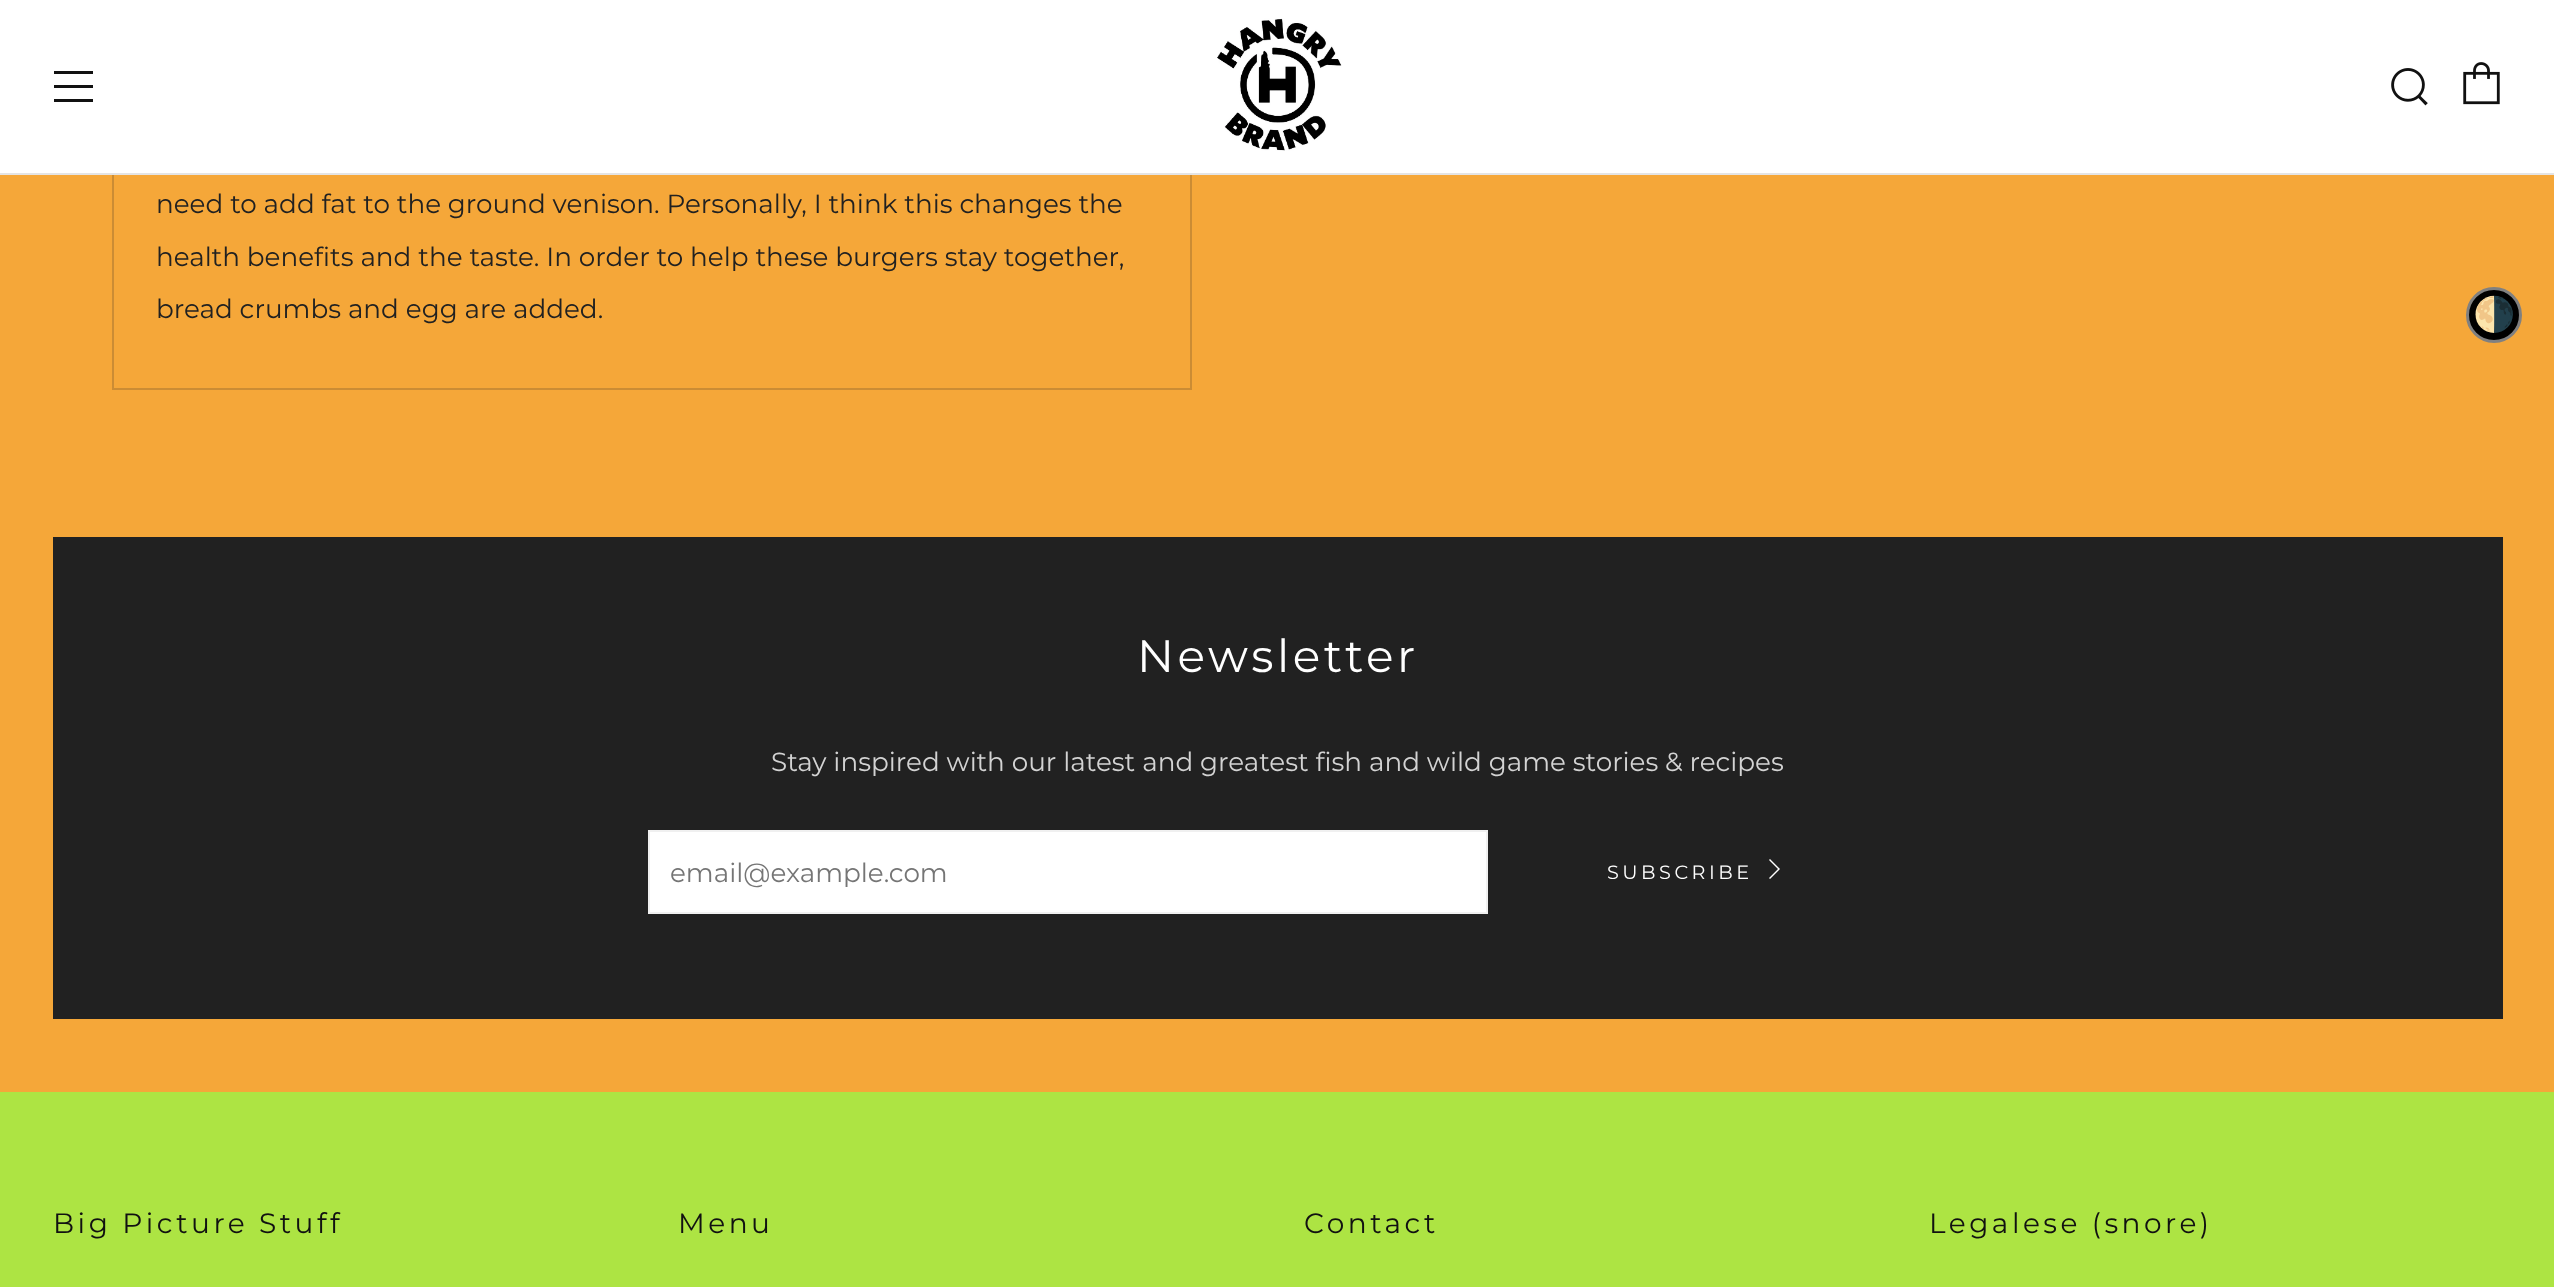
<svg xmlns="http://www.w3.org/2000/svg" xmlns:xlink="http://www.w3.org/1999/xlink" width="2554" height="1287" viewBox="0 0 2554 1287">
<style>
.cls-1{font:26.25px Montserrat;fill:#212121}
.cls-2{font:45.5px Montserrat;letter-spacing:3.5px;fill:#ffffff}
.cls-3{font:26.25px Montserrat;fill:#d3d3d3}
.cls-4{font:26.25px Montserrat;fill:#757575}
.cls-5{font:19.25px Montserrat;letter-spacing:3.5px;fill:#ffffff}
.cls-6{font:28px Montserrat;letter-spacing:3.5px;fill:#111111}
.cls-7{font:bold 34px Noto Color Emoji;fill:#ffffff}
</style>
<rect width="100%" height="100%" fill="#f5a739"/>
<rect fill="none" stroke="#cb8c34" stroke-width="2" x="113" y="-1" width="1078" height="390"/>
<rect fill="#ffffff" x="0" y="0" width="2554" height="173"/>
<rect fill="#e4e4e4" x="0" y="173" width="2554" height="2"/>
<path fill="#111111" d="M54 74H93V71H54ZM54 102H93V99H54ZM54 88H93V85H54Z"/>
<image xlink:href="image0.png" x="1217" y="18" width="125" height="133"/>
<image xlink:href="image1.png" x="2391" y="68" width="37" height="38"/>
<image xlink:href="image2.png" x="2463" y="62" width="37" height="43"/>
<rect fill="#212121" x="53" y="537" width="2450" height="482"/>
<rect fill="#ffffff" stroke="#f0f0f0" stroke-width="2" x="649" y="831" width="838" height="82"/>
<path fill="#ffffff" d="M1769 878L1770 879L1780 869L1770 859L1769 860L1778 869Z"/>
<rect fill="#ade443" x="0" y="1092" width="2554" height="195"/>
<circle fill="#000000" stroke="#808080" stroke-width="3" cx="2494" cy="315" r="26.5"/>
<text class="cls-1" x="156" y="213">need to add fat to the ground venison. Personally, I think this changes the</text>
<text class="cls-1"><tspan x="156" y="266">health benefits and the taste. In order to help these burgers stay together,</tspan><tspan x="156" y="318">bread crumbs and egg are added.</tspan></text>
<text class="cls-2" x="1137" y="672">Newsletter</text>
<text class="cls-3" x="771" y="771">Stay inspired with our latest and greatest fish and wild game stories &amp; recipes</text>
<text class="cls-4" x="670" y="882">email@example.com</text>
<text class="cls-5" x="1607" y="879">SUBSCRIBE</text>
<text class="cls-6" x="53" y="1233">Big Picture Stuff</text>
<text class="cls-6" x="678" y="1233">Menu</text>
<text class="cls-6" x="1304" y="1233">Contact</text>
<text class="cls-6" x="1929" y="1233">Legalese (snore)</text>
<text class="cls-7" x="2473" y="326">🌗</text>
</svg>
